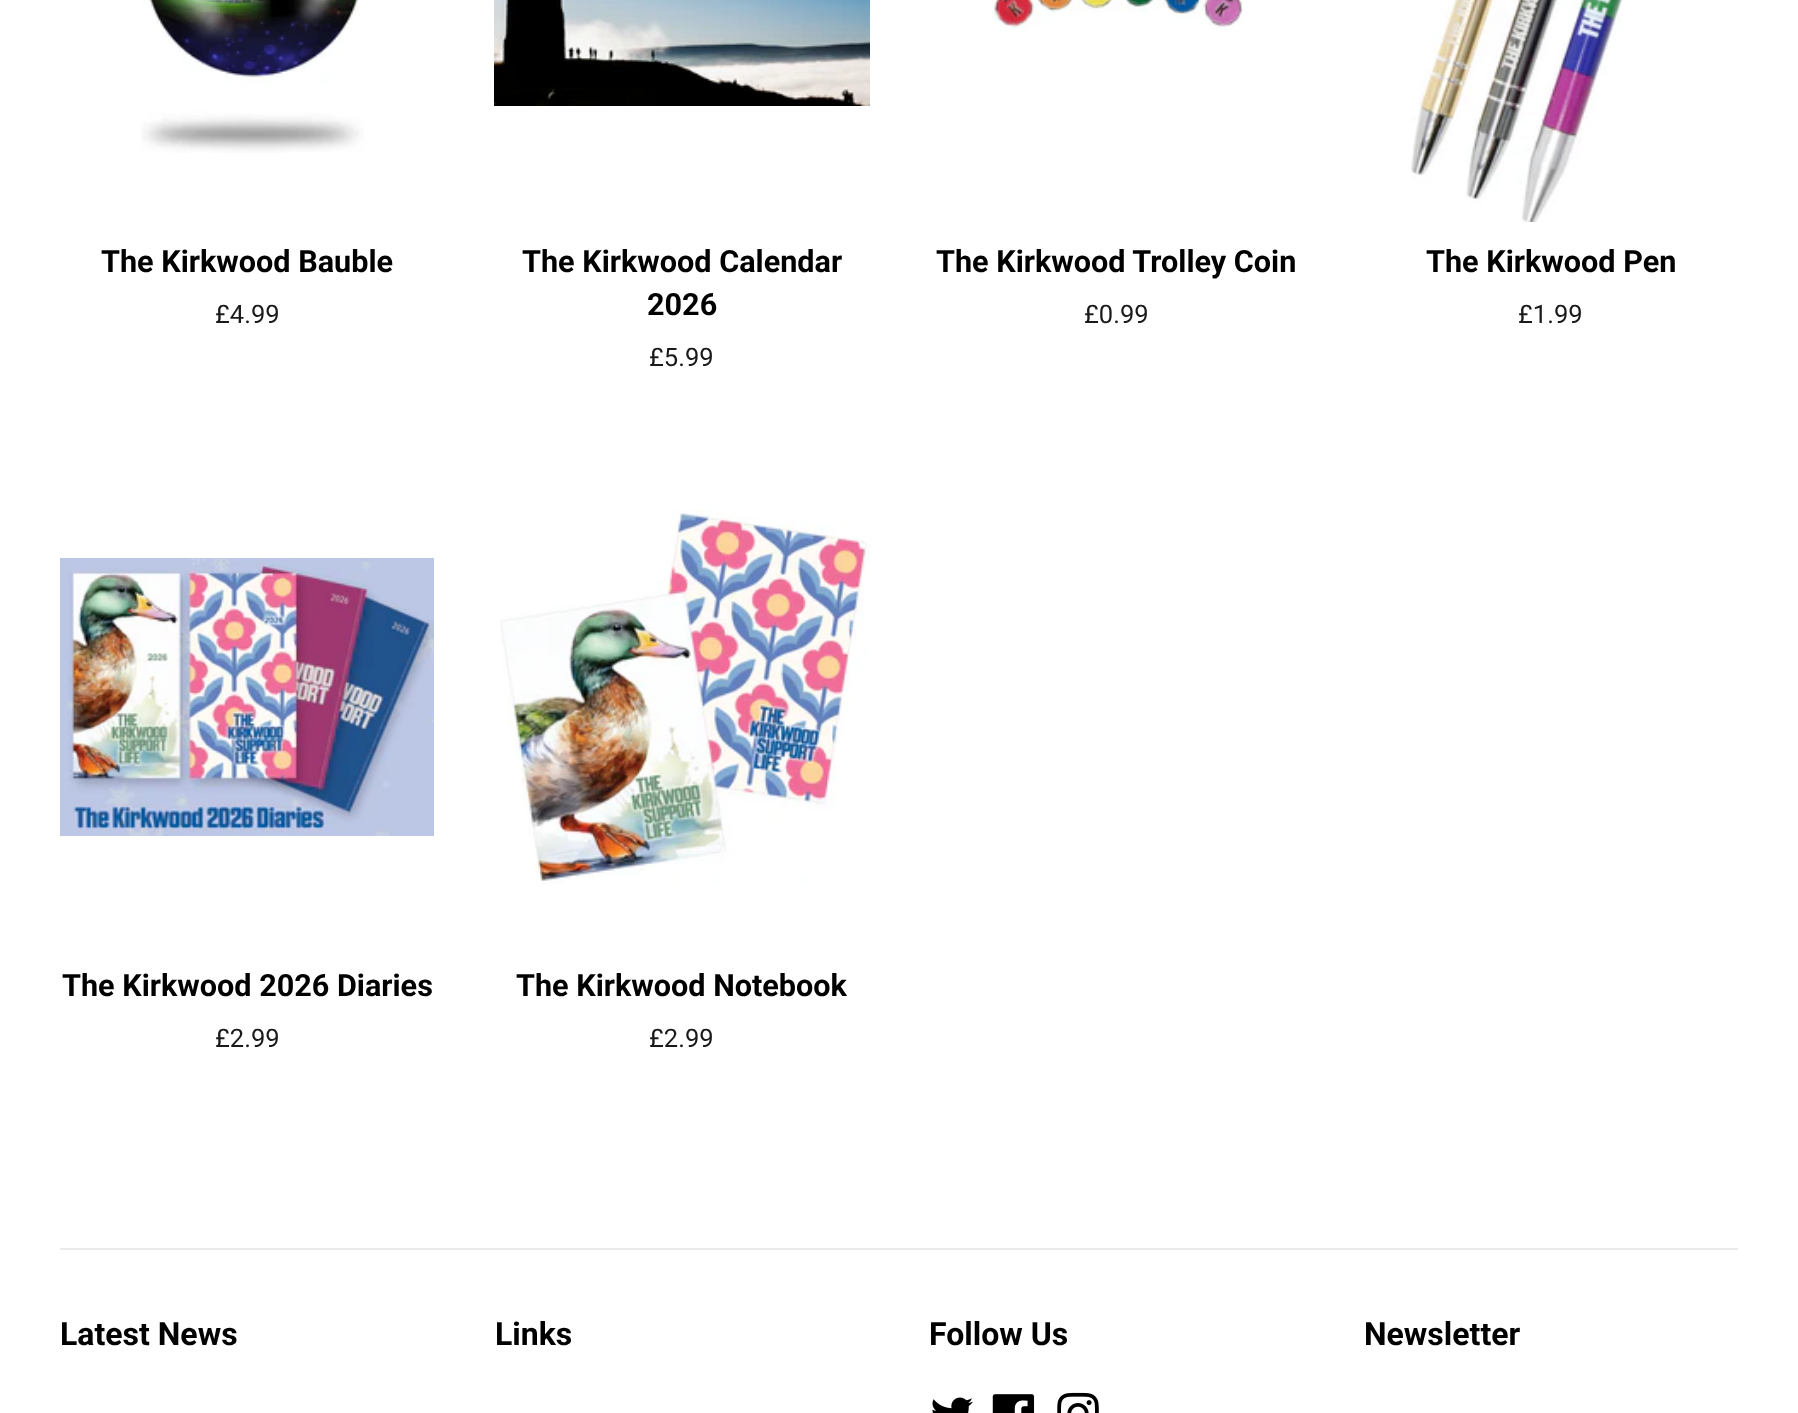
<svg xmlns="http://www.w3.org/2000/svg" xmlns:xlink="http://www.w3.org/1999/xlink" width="1798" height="1413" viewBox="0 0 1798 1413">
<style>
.cls-1{font:bold 30.6px Roboto;fill:#000000}
.cls-2{font:25.5px Roboto;fill:#1a1a1a}
.cls-3{font:bold 32px Roboto;fill:#000000}
</style>
<rect width="100%" height="100%" fill="#ffffff"/>
<image xlink:href="image0.png" x="141" y="0" width="223" height="153"/>
<image xlink:href="image1.png" x="494" y="0" width="376" height="106"/>
<image xlink:href="image2.png" x="991" y="0" width="252" height="30"/>
<image xlink:href="image3.png" x="1411" y="0" width="212" height="222"/>
<image xlink:href="image4.png" x="60" y="558" width="374" height="278"/>
<image xlink:href="image5.png" x="500" y="510" width="370" height="374"/>
<rect fill="#ebebeb" x="60" y="1248" width="1678" height="2"/>
<image xlink:href="image6.png" x="932" y="1397" width="41" height="16"/>
<image xlink:href="image7.png" x="992" y="1394" width="43" height="19"/>
<image xlink:href="image8.png" x="1057" y="1392" width="42" height="21"/>
<text class="cls-1" x="101" y="272">The Kirkwood Bauble</text>
<text class="cls-2" x="215" y="323">£4.99</text>
<text class="cls-1" x="522" y="272">The Kirkwood Calendar</text>
<text class="cls-1" x="647" y="315">2026</text>
<text class="cls-2" x="649" y="366">£5.99</text>
<text class="cls-1" x="936" y="272">The Kirkwood Trolley Coin</text>
<text class="cls-2" x="1084" y="323">£0.99</text>
<text class="cls-1" x="1426" y="272">The Kirkwood Pen</text>
<text class="cls-2" x="1518" y="323">£1.99</text>
<text class="cls-1" x="62" y="996">The Kirkwood 2026 Diaries</text>
<text class="cls-2" x="215" y="1047">£2.99</text>
<text class="cls-1" x="516" y="996">The Kirkwood Notebook</text>
<text class="cls-2" x="649" y="1047">£2.99</text>
<text class="cls-3" x="60" y="1345">Latest News</text>
<text class="cls-3" x="495" y="1345">Links</text>
<text class="cls-3" x="929" y="1345">Follow Us</text>
<text class="cls-3" x="1364" y="1345">Newsletter</text>
</svg>
